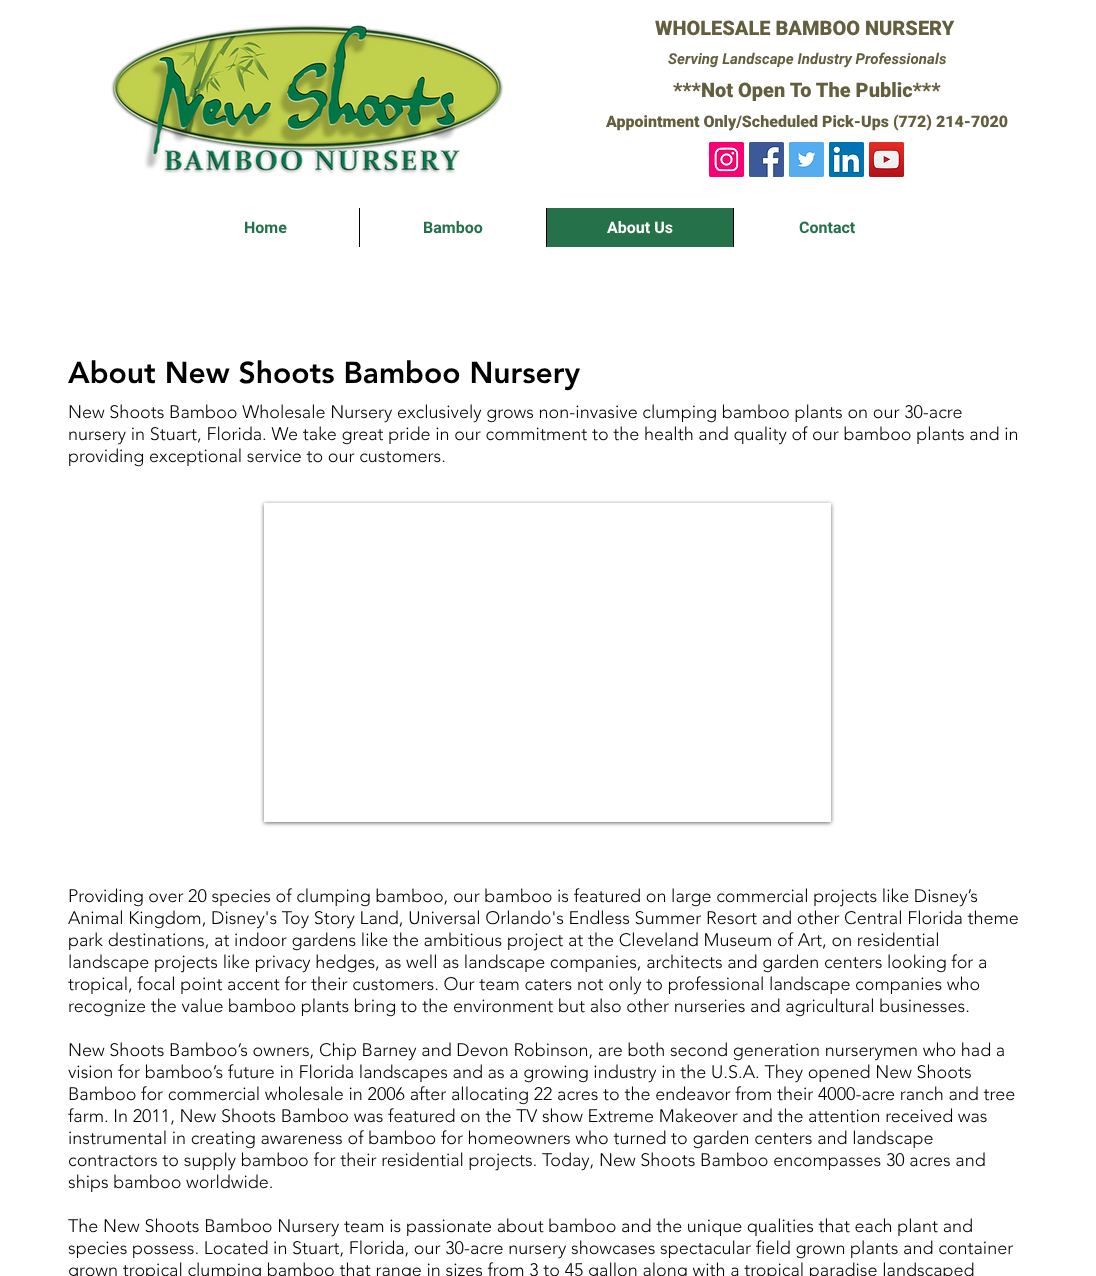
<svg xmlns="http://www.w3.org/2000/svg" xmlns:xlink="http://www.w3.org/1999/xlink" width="1096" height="1276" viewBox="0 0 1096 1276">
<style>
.cls-1{font:900 20px Roboto;fill:#635e3e}
.cls-2{font:italic bold 15px Roboto;fill:#635e3e}
.cls-3{font:900 16px Roboto;fill:#635e3e}
.cls-4{font:bold 16px Roboto;fill:#257149}
.cls-5{font:bold 16px Roboto;fill:#ffffff}
.cls-6{font:900 30px 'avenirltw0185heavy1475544';fill:#000000}
.cls-7{font:300 18px 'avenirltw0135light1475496';fill:#000000}
</style>
<defs>
<clipPath id="clip1"><path d="M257 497H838V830H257ZM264 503H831V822H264Z" clip-rule="evenodd"/></clipPath>
</defs>
<rect width="100%" height="100%" fill="#ffffff"/>
<image xlink:href="image0.png" x="111" y="24" width="393" height="150"/>
<image xlink:href="image1.png" x="709" y="142" width="35" height="35"/>
<image xlink:href="image2.png" x="749" y="142" width="35" height="35"/>
<image xlink:href="image3.png" x="789" y="142" width="35" height="35"/>
<image xlink:href="image4.png" x="829" y="142" width="35" height="35"/>
<image xlink:href="image5.png" x="869" y="142" width="35" height="35"/>
<rect fill="#000000" x="359" y="208" width="1" height="39"/>
<rect fill="#257149" x="547" y="208" width="186" height="39"/>
<rect fill="#000000" x="546" y="208" width="1" height="39"/>
<rect fill="#000000" x="733" y="208" width="1" height="39"/>
<g clip-path="url(#clip1)">
<rect fill="#000000" fill-opacity="0.6" filter="blur(2px)" x="264" y="504" width="567" height="319"/>
</g>
<text class="cls-1" x="655" y="35">WHOLESALE BAMBOO NURSERY</text>
<text class="cls-2" x="668" y="64">Serving Landscape Industry Professionals</text>
<text class="cls-1" x="673" y="97">***Not Open To The Public***</text>
<text class="cls-3" x="606" y="127">Appointment Only/Scheduled Pick-Ups (772) 214-7020</text>
<text class="cls-4" x="244" y="233">Home</text>
<text class="cls-4" x="423" y="233">Bamboo</text>
<text class="cls-5" x="607" y="233">About Us</text>
<text class="cls-4" x="799" y="233">Contact</text>
<text class="cls-6" x="68" y="383">About New Shoots Bamboo Nursery</text>
<text class="cls-7"><tspan x="68" y="418">New Shoots Bamboo Wholesale Nursery exclusively grows non-invasive clumping bamboo plants on our 30-acre</tspan><tspan x="68" y="440">nursery in Stuart, Florida. We take great pride in our commitment to the health and quality of our bamboo plants and in</tspan><tspan x="68" y="462">providing exceptional service to our customers.</tspan></text>
<text class="cls-7"><tspan x="68" y="902">Providing over 20 species of clumping bamboo, our bamboo is featured on large commercial projects like Disney’s</tspan><tspan x="68" y="924">Animal Kingdom, Disney's Toy Story Land, Universal Orlando's Endless Summer Resort and other Central Florida theme</tspan><tspan x="68" y="946">park destinations, at indoor gardens like the ambitious project at the Cleveland Museum of Art, on residential</tspan><tspan x="68" y="968">landscape projects like privacy hedges, as well as landscape companies, architects and garden centers looking for a</tspan><tspan x="68" y="990">tropical, focal point accent for their customers. Our team caters not only to professional landscape companies who</tspan><tspan x="68" y="1012">recognize the value bamboo plants bring to the environment but also other nurseries and agricultural businesses.</tspan></text>
<text class="cls-7"><tspan x="68" y="1056">New Shoots Bamboo’s owners, Chip Barney and Devon Robinson, are both second generation nurserymen who had a</tspan><tspan x="68" y="1078">vision for bamboo’s future in Florida landscapes and as a growing industry in the U.S.A. They opened New Shoots</tspan><tspan x="68" y="1100">Bamboo for commercial wholesale in 2006 after allocating 22 acres to the endeavor from their 4000-acre ranch and tree</tspan><tspan x="68" y="1122">farm. In 2011, New Shoots Bamboo was featured on the TV show Extreme Makeover and the attention received was</tspan><tspan x="68" y="1144">instrumental in creating awareness of bamboo for homeowners who turned to garden centers and landscape</tspan><tspan x="68" y="1166">contractors to supply bamboo for their residential projects. Today, New Shoots Bamboo encompasses 30 acres and</tspan><tspan x="68" y="1188">ships bamboo worldwide.</tspan></text>
<text class="cls-7"><tspan x="68" y="1232">The New Shoots Bamboo Nursery team is passionate about bamboo and the unique qualities that each plant and</tspan><tspan x="68" y="1254">species possess. Located in Stuart, Florida, our 30-acre nursery showcases spectacular field grown plants and container</tspan><tspan x="68" y="1276">grown tropical clumping bamboo that range in sizes from 3 to 45 gallon along with a tropical paradise landscaped</tspan></text>
</svg>
